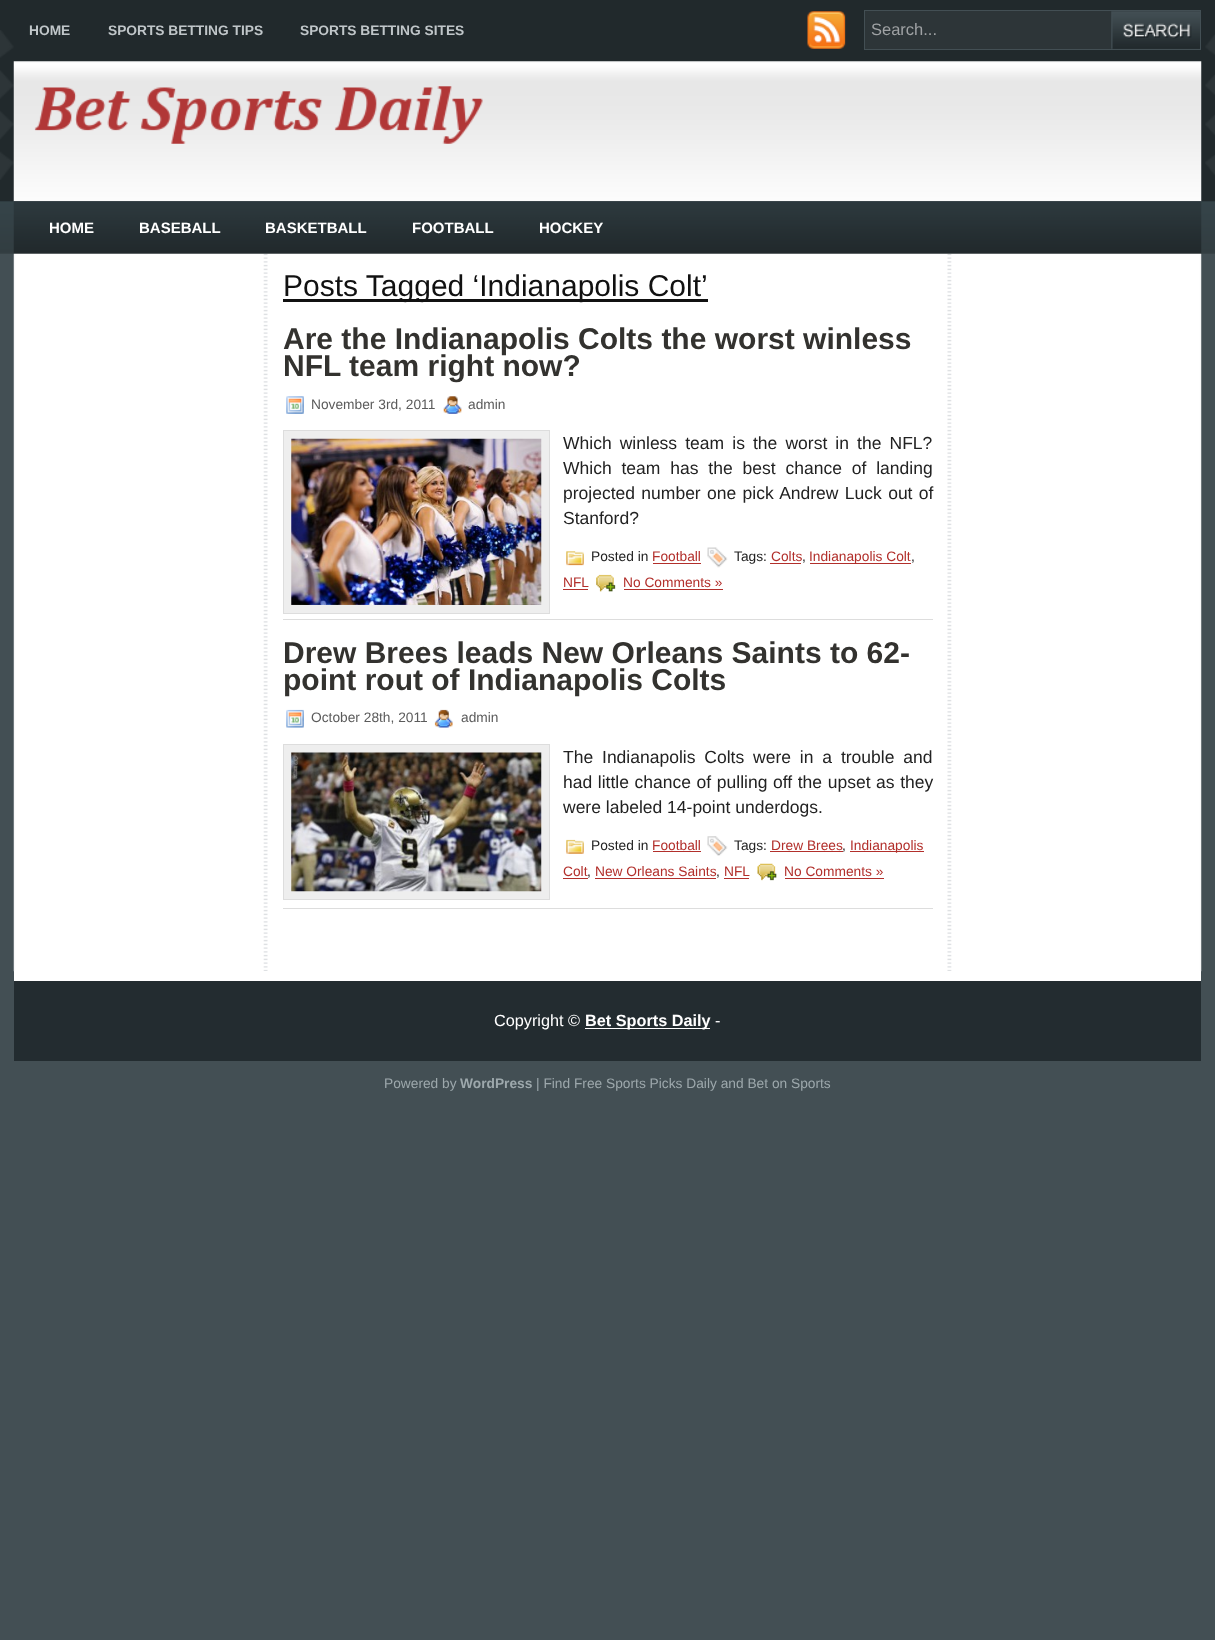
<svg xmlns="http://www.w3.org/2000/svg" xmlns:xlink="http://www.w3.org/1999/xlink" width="1215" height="1640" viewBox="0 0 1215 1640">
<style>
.cls-1{font:bold 13.75px Liberation Sans;fill:#c0c6c9}
.cls-2{font:16.5px Liberation Sans;fill:#9fa2a4}
.cls-3{font:bold 15px Liberation Sans;fill:#ffffff}
.cls-4{font:30px Liberation Sans;fill:#111111}
.cls-5{font:bold 30px Liberation Sans;fill:#33322f}
.cls-6{font:13.75px Liberation Sans;fill:#5b5b5b}
.cls-7{font:17.5px Liberation Sans;fill:#222222}
.cls-8{font:13.75px Liberation Sans;fill:#222222}
.cls-9{font:13.75px Liberation Sans;fill:#b22f2b}
.cls-10{font:16.25px Liberation Sans;fill:#ffffff}
.cls-11{font:bold 16.25px Liberation Sans;fill:#ffffff}
.cls-12{font:13.75px Liberation Sans;fill:#9da8ac}
.cls-13{font:bold 13.75px Liberation Sans;fill:#9da8ac}
</style>
<rect width="100%" height="100%" fill="#434f54"/>
<image xlink:href="image0.png" x="0" y="0" width="1215" height="254"/>
<image xlink:href="image1.png" x="0" y="30" width="1215" height="150"/>
<image xlink:href="image2.png" x="807" y="11" width="39" height="38"/>
<rect fill="#2d3538" stroke="#434f54" x="864.5" y="10.5" width="336" height="39"/>
<image xlink:href="image3.png" x="1111" y="11" width="89" height="38"/>
<image xlink:href="image4.png" x="13" y="61" width="1189" height="141"/>
<image xlink:href="image5.png" x="34" y="86" width="449" height="58"/>
<image xlink:href="image6.png" x="13" y="201" width="1189" height="53"/>
<image xlink:href="image7.png" x="13" y="253" width="1189" height="719"/>
<rect fill="#111111" x="283" y="299" width="425" height="3"/>
<rect fill="#dddddd" x="283" y="619" width="650" height="1"/>
<image xlink:href="image8.png" x="286" y="396" width="18" height="18"/>
<image xlink:href="image9.png" x="443" y="396" width="19" height="18"/>
<rect fill="#eeeeee" stroke="#dddddd" x="283.5" y="430.5" width="266" height="183"/>
<image xlink:href="image10.png" x="291" y="438" width="251" height="167"/>
<image xlink:href="image11.png" x="566" y="551" width="18" height="15"/>
<rect fill="#b22f2b" x="653" y="563" width="48" height="1"/>
<image xlink:href="image12.png" x="707" y="547" width="21" height="21"/>
<rect fill="#b22f2b" x="770" y="563" width="31" height="1"/>
<rect fill="#b22f2b" x="810" y="563" width="101" height="1"/>
<rect fill="#b22f2b" x="563" y="589" width="25" height="1"/>
<image xlink:href="image13.png" x="596" y="574" width="20" height="18"/>
<rect fill="#b22f2b" x="624" y="589" width="99" height="1"/>
<rect fill="#dddddd" x="283" y="908" width="650" height="1"/>
<image xlink:href="image14.png" x="286" y="709" width="18" height="19"/>
<image xlink:href="image15.png" x="434" y="709" width="19" height="19"/>
<rect fill="#eeeeee" stroke="#dddddd" x="283.5" y="744.5" width="266" height="155"/>
<image xlink:href="image16.png" x="291" y="752" width="251" height="140"/>
<image xlink:href="image17.png" x="566" y="839" width="18" height="15"/>
<rect fill="#b22f2b" x="653" y="851" width="48" height="1"/>
<image xlink:href="image18.png" x="707" y="836" width="21" height="20"/>
<rect fill="#b22f2b" x="770" y="851" width="73" height="1"/>
<rect fill="#b22f2b" x="850" y="851" width="74" height="1"/>
<rect fill="#b22f2b" x="563" y="878" width="25" height="1"/>
<rect fill="#b22f2b" x="595" y="878" width="121" height="1"/>
<rect fill="#b22f2b" x="724" y="878" width="25" height="1"/>
<image xlink:href="image19.png" x="757" y="863" width="20" height="18"/>
<rect fill="#b22f2b" x="785" y="878" width="99" height="1"/>
<rect fill="#232c30" x="14" y="981" width="1187" height="80"/>
<rect fill="#ffffff" x="14" y="971" width="1187" height="10"/>
<rect fill="#ffffff" x="585" y="1028" width="125" height="1"/>
<text class="cls-1" x="29" y="35">HOME</text>
<text class="cls-1" x="108" y="35">SPORTS BETTING TIPS</text>
<text class="cls-1" x="300" y="35">SPORTS BETTING SITES</text>
<text class="cls-2" x="871" y="35">Search...</text>
<text class="cls-3" x="49" y="233">HOME</text>
<text class="cls-3" x="139" y="233">BASEBALL</text>
<text class="cls-3" x="265" y="233">BASKETBALL</text>
<text class="cls-3" x="412" y="233">FOOTBALL</text>
<text class="cls-3" x="539" y="233">HOCKEY</text>
<text class="cls-4" x="283" y="296">Posts Tagged ‘Indianapolis Colt’</text>
<text class="cls-5"><tspan x="283" y="349">Are the Indianapolis Colts the worst winless</tspan><tspan x="283" y="376">NFL team right now?</tspan></text>
<text class="cls-6" x="311" y="409">November 3rd, 2011</text>
<text class="cls-6" x="468" y="409">admin</text>
<text class="cls-7"><tspan x="563" y="449" word-spacing="3.25">Which winless team is the worst in the NFL?</tspan><tspan x="563" y="474" word-spacing="5">Which team has the best chance of landing</tspan><tspan x="563" y="499" word-spacing="1.5">projected number one pick Andrew Luck out of</tspan><tspan x="563" y="524">Stanford?</tspan></text>
<text class="cls-8" x="591" y="561">Posted in</text>
<text class="cls-9" x="652" y="561">Football</text>
<text class="cls-8" x="734" y="561">Tags:</text>
<text class="cls-9" x="771" y="561">Colts</text>
<text class="cls-8" x="802" y="561">,</text>
<text class="cls-9" x="809" y="561">Indianapolis Colt</text>
<text class="cls-8" x="911" y="561">,</text>
<text class="cls-9" x="563" y="587">NFL</text>
<text class="cls-9" x="623" y="587">No Comments »</text>
<text class="cls-5"><tspan x="283" y="663">Drew Brees leads New Orleans Saints to 62-</tspan><tspan x="283" y="690">point rout of Indianapolis Colts</tspan></text>
<text class="cls-6" x="311" y="722">October 28th, 2011</text>
<text class="cls-6" x="461" y="722">admin</text>
<text class="cls-7"><tspan x="563" y="763" word-spacing="4">The Indianapolis Colts were in a trouble and</tspan><tspan x="563" y="788" word-spacing="0.75">had little chance of pulling off the upset as they</tspan><tspan x="563" y="813">were labeled 14-point underdogs.</tspan></text>
<text class="cls-8" x="591" y="850">Posted in</text>
<text class="cls-9" x="652" y="850">Football</text>
<text class="cls-8" x="734" y="850">Tags:</text>
<text class="cls-9" x="771" y="850">Drew Brees</text>
<text class="cls-8" x="842" y="850">,</text>
<text class="cls-9" x="850" y="850">Indianapolis</text>
<text class="cls-9" x="563" y="876">Colt</text>
<text class="cls-8" x="587" y="876">,</text>
<text class="cls-9" x="595" y="876">New Orleans Saints</text>
<text class="cls-8" x="716" y="876">,</text>
<text class="cls-9" x="724" y="876">NFL</text>
<text class="cls-9" x="784" y="876">No Comments »</text>
<text class="cls-10" x="494" y="1026">Copyright ©</text>
<text class="cls-11" x="585" y="1026">Bet Sports Daily</text>
<text class="cls-10" x="715" y="1026">-</text>
<text class="cls-12" x="384" y="1088">Powered by</text>
<text class="cls-13" x="460" y="1088">WordPress</text>
<text class="cls-12" x="536" y="1088">| Find Free Sports Picks Daily and Bet on Sports</text>
</svg>
